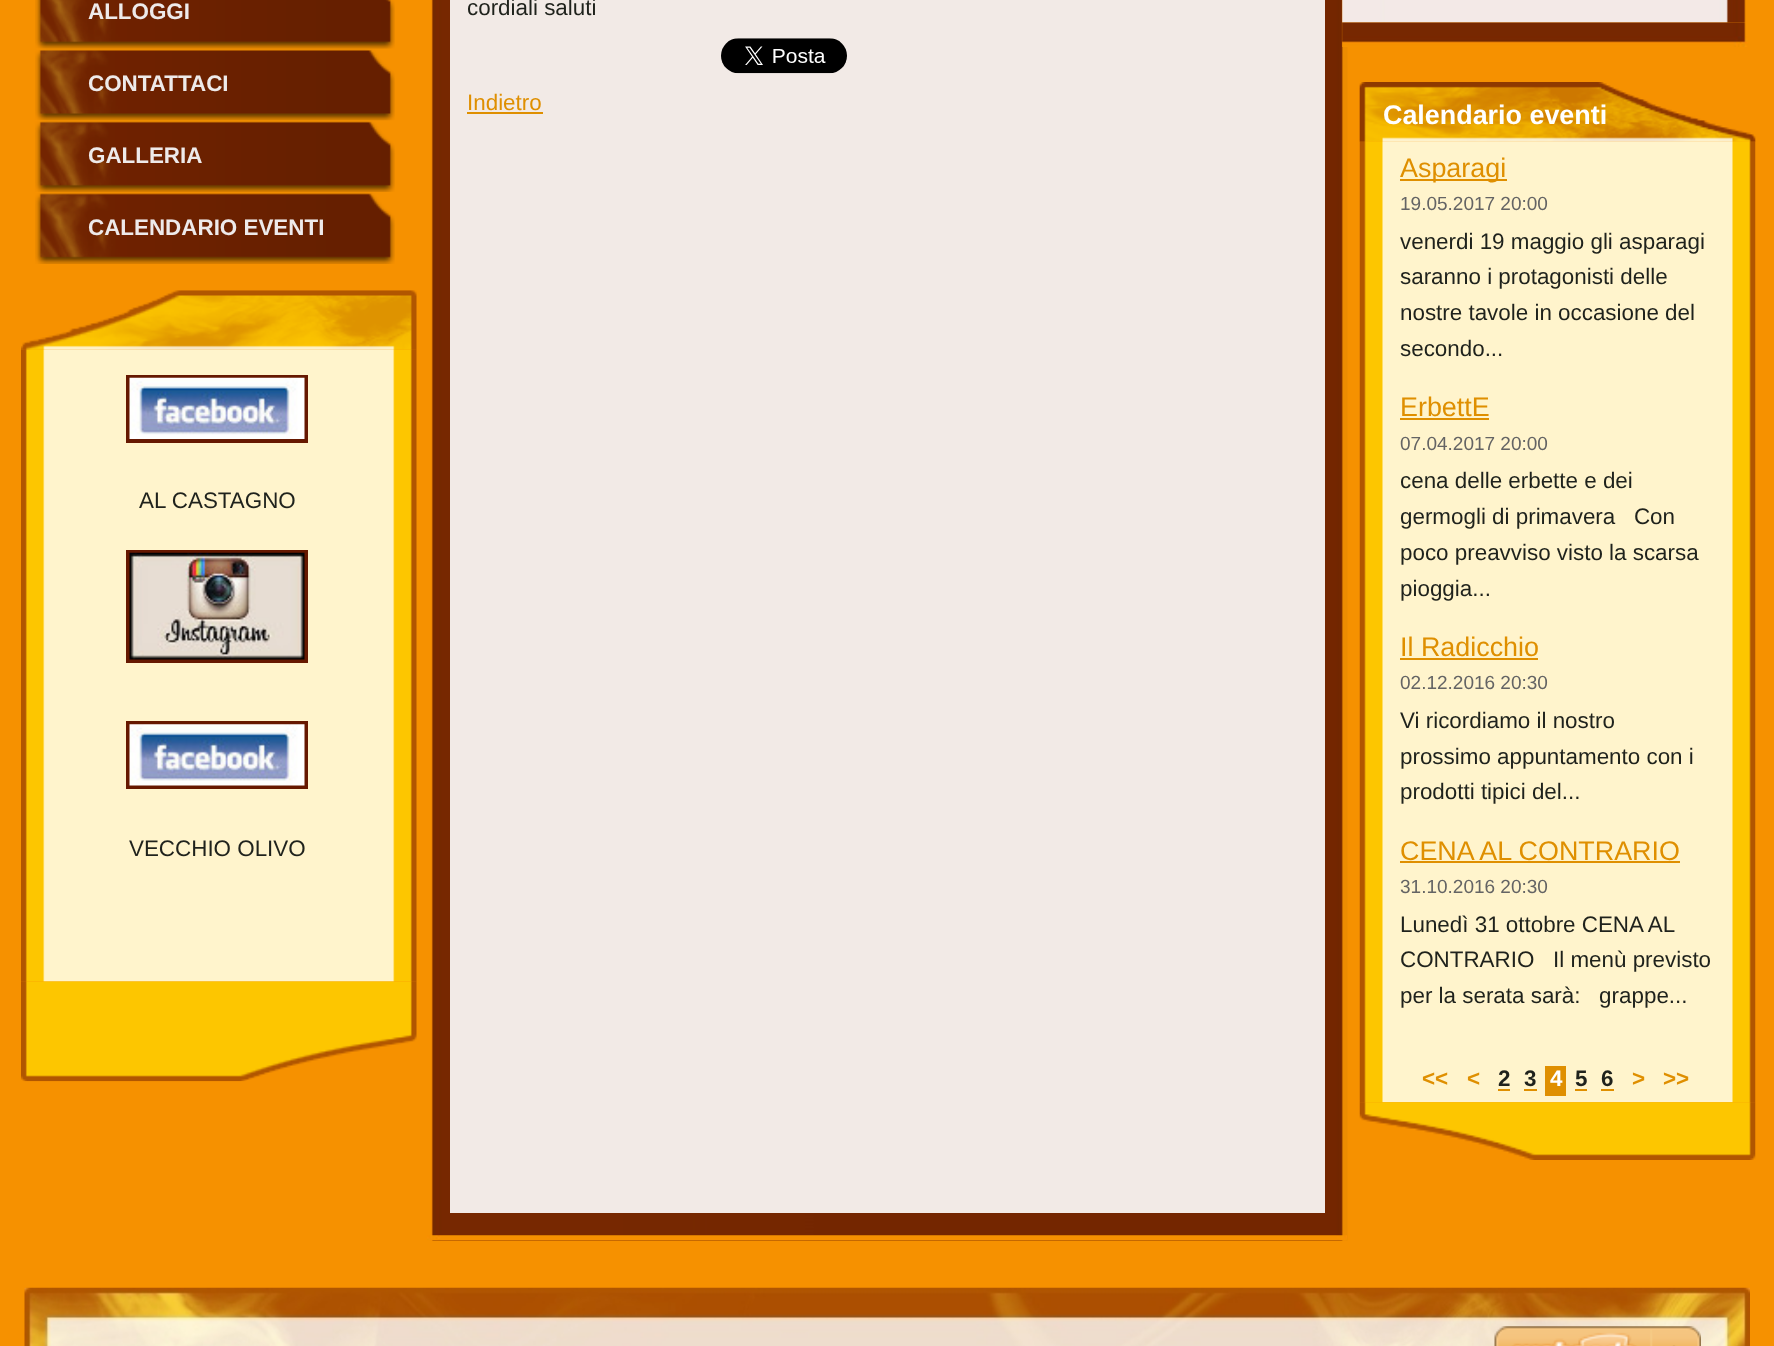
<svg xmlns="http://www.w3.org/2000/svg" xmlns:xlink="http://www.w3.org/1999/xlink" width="1774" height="1346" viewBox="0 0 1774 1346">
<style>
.cls-1{font:bold 22.4px Liberation Sans;fill:#eeeaea}
.cls-2{font:22.4px Liberation Sans;fill:#1f221c}
.cls-3{font:22.4px Liberation Sans;fill:#df8f00}
.cls-4{font:bold 26.9px Liberation Sans;fill:#ffffff}
.cls-5{font:26.9px Liberation Sans;fill:#df8f00}
.cls-6{font:19px Liberation Sans;fill:#646464}
.cls-7{font:bold 22.4px Liberation Sans;fill:#df8f00}
.cls-8{font:bold 22.4px Liberation Sans;fill:#1f221c}
.cls-9{font:bold 22.4px Liberation Sans;fill:#ffffff}
</style>
<rect width="100%" height="100%" fill="#f69100"/>
<image xlink:href="image0.png" x="35" y="0" width="360" height="49"/>
<image xlink:href="image1.png" x="35" y="49" width="360" height="72"/>
<image xlink:href="image2.png" x="35" y="121" width="360" height="71"/>
<image xlink:href="image3.png" x="35" y="192" width="360" height="72"/>
<image xlink:href="image4.png" x="21" y="290" width="396" height="60"/>
<image xlink:href="image5.png" x="21" y="349" width="396" height="633"/>
<rect fill="none" stroke="#661800" stroke-width="4" x="128" y="377" width="178" height="64"/>
<image xlink:href="image6.png" x="129" y="377" width="176" height="62"/>
<rect fill="none" stroke="#661800" stroke-width="4" x="128" y="552" width="178" height="109"/>
<image xlink:href="image7.png" x="129" y="552" width="176" height="108"/>
<rect fill="none" stroke="#661800" stroke-width="4" x="128" y="723" width="178" height="64"/>
<image xlink:href="image8.png" x="129" y="724" width="176" height="62"/>
<image xlink:href="image9.png" x="21" y="981" width="396" height="101"/>
<image xlink:href="image10.png" x="431" y="0" width="917" height="1241"/>
<rect fill="#f2eae6" x="450" y="0" width="875" height="1213"/>
<image xlink:href="image11.png" x="721" y="38" width="126" height="36"/>
<rect fill="#df8f00" x="467" y="112" width="76" height="2"/>
<image xlink:href="image12.png" x="427" y="1235" width="920" height="6"/>
<image xlink:href="image13.png" x="1342" y="0" width="404" height="23"/>
<image xlink:href="image14.png" x="1342" y="22" width="406" height="25"/>
<image xlink:href="image15.png" x="1359" y="82" width="397" height="60"/>
<image xlink:href="image16.png" x="1359" y="82" width="397" height="60"/>
<image xlink:href="image17.png" x="1359" y="141" width="397" height="962"/>
<rect fill="#df8f00" x="1400" y="179" width="107" height="2"/>
<rect fill="#df8f00" x="1400" y="418" width="89" height="2"/>
<rect fill="#df8f00" x="1400" y="658" width="138" height="2"/>
<rect fill="#df8f00" x="1400" y="861" width="280" height="2"/>
<rect fill="#df8f00" x="1498" y="1089" width="12" height="2"/>
<rect fill="#df8f00" x="1524" y="1089" width="13" height="2"/>
<rect fill="#df8f00" x="1545" y="1066" width="21" height="30"/>
<rect fill="#df8f00" x="1575" y="1089" width="12" height="2"/>
<rect fill="#df8f00" x="1601" y="1089" width="13" height="2"/>
<image xlink:href="image18.png" x="1359" y="1102" width="397" height="58"/>
<image xlink:href="image19.png" x="24" y="1287" width="1726" height="59"/>
<image xlink:href="image20.png" x="1494" y="1326" width="207" height="20"/>
<text class="cls-1" x="88" y="19">ALLOGGI</text>
<text class="cls-1" x="88" y="91">CONTATTACI</text>
<text class="cls-1" x="88" y="163">GALLERIA</text>
<text class="cls-1" x="88" y="235">CALENDARIO EVENTI</text>
<text class="cls-2" x="139" y="508">AL CASTAGNO</text>
<text class="cls-2" x="129" y="856">VECCHIO OLIVO</text>
<text class="cls-2" x="467" y="15">cordiali saluti</text>
<text class="cls-3" x="467" y="110">Indietro</text>
<text class="cls-4" x="1383" y="124">Calendario eventi</text>
<text class="cls-5" x="1400" y="177">Asparagi</text>
<text class="cls-6" x="1400" y="210">19.05.2017 20:00</text>
<text class="cls-2"><tspan x="1400" y="249">venerdi 19 maggio gli asparagi</tspan><tspan x="1400" y="284">saranno i protagonisti delle</tspan><tspan x="1400" y="320">nostre tavole in occasione del</tspan><tspan x="1400" y="356">secondo...</tspan></text>
<text class="cls-5" x="1400" y="416">ErbettE</text>
<text class="cls-6" x="1400" y="450">07.04.2017 20:00</text>
<text class="cls-2" xml:space="preserve"><tspan x="1400" y="488">cena delle erbette e dei</tspan><tspan x="1400" y="524">germogli di primavera   Con</tspan><tspan x="1400" y="560">poco preavviso visto la scarsa</tspan><tspan x="1400" y="596">pioggia...</tspan></text>
<text class="cls-5" x="1400" y="656">Il Radicchio</text>
<text class="cls-6" x="1400" y="689">02.12.2016 20:30</text>
<text class="cls-2"><tspan x="1400" y="728">Vi ricordiamo il nostro</tspan><tspan x="1400" y="764">prossimo appuntamento con i</tspan><tspan x="1400" y="799">prodotti tipici del...</tspan></text>
<text class="cls-5" x="1400" y="860">CENA AL CONTRARIO</text>
<text class="cls-6" x="1400" y="893">31.10.2016 20:30</text>
<text class="cls-2" xml:space="preserve"><tspan x="1400" y="932">Lunedì 31 ottobre CENA AL</tspan><tspan x="1400" y="967">CONTRARIO   Il menù previsto</tspan><tspan x="1400" y="1003">per la serata sarà:   grappe...</tspan></text>
<text class="cls-7" x="1422" y="1086">&lt;&lt;</text>
<text class="cls-7" x="1467" y="1086">&lt;</text>
<text class="cls-8" x="1498" y="1086">2</text>
<text class="cls-8" x="1524" y="1086">3</text>
<text class="cls-9" x="1550" y="1086">4</text>
<text class="cls-8" x="1575" y="1086">5</text>
<text class="cls-8" x="1601" y="1086">6</text>
<text class="cls-7" x="1632" y="1086">&gt;</text>
<text class="cls-7" x="1663" y="1086">&gt;&gt;</text>
</svg>
